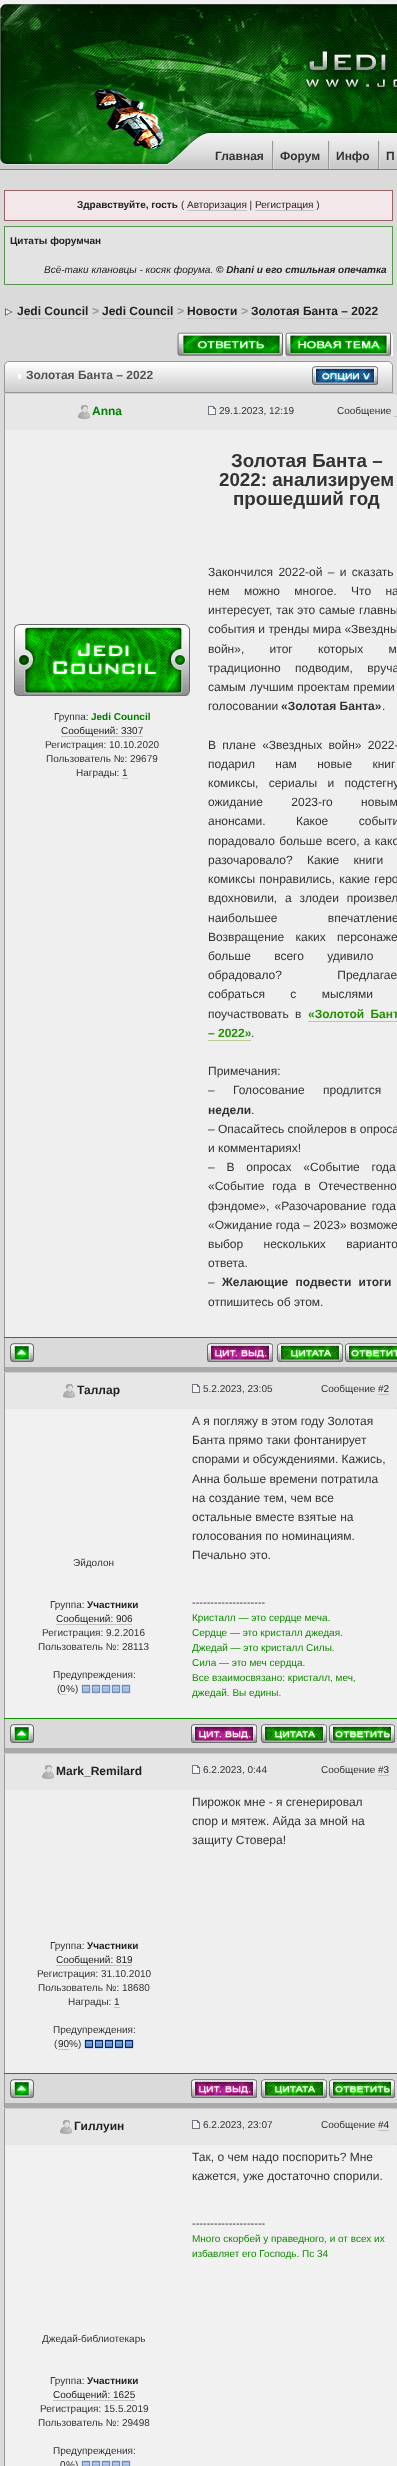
<svg xmlns="http://www.w3.org/2000/svg" xmlns:xlink="http://www.w3.org/1999/xlink" width="397" height="2466" viewBox="0 0 397 2466">
<style>
.cls-1{font:bold 12px Liberation Sans;fill:#333333}
.cls-2{font:bold 10px Liberation Sans;fill:#222222}
.cls-3{font:10px Liberation Sans;fill:#222222}
.cls-4{font:italic 10px Liberation Sans;fill:#222222}
.cls-5{font:italic bold 10px Liberation Sans;fill:#222222}
.cls-6{font:bold 12px Liberation Sans;fill:#222222}
.cls-7{font:bold 12px Liberation Sans;fill:#999999}
.cls-8{font:bold 12px Liberation Sans;fill:#525252}
.cls-9{font:bold 12px Liberation Sans;fill:#008000}
.cls-10{font:10px Liberation Sans;fill:#333333}
.cls-11{font:bold 10px Liberation Sans;fill:#008000}
.cls-12{font:bold 18.75px Liberation Sans;fill:#333333}
.cls-13{font:12px Liberation Sans;fill:#333333}
.cls-14{font:bold 12px Liberation Sans;fill:#229000}
.cls-15{font:11px Liberation Sans;fill:#333333}
.cls-16{font:10px Liberation Sans;fill:#0f8900}
</style>
<defs>
<linearGradient id="g1" gradientUnits="userSpaceOnUse" x1="5" y1="362" x2="5" y2="392"><stop offset="0" stop-color="#ffffff"/><stop offset="1" stop-color="#cccccc"/></linearGradient>
</defs>
<rect width="100%" height="100%" fill="#dadada"/>
<image xlink:href="image0.png" x="0" y="0" width="397" height="170"/>
<image xlink:href="image1.png" x="0" y="4" width="397" height="161"/>
<image xlink:href="image2.png" x="272" y="141" width="2" height="28"/>
<image xlink:href="image2.png" x="328" y="141" width="2" height="28"/>
<image xlink:href="image2.png" x="378" y="141" width="2" height="28"/>
<rect fill="#f4e7ea" stroke="#986265" x="4.5" y="190.5" width="388" height="30"/>
<rect fill="#c2c2c2" x="187" y="210" width="60" height="1"/>
<rect fill="#c2c2c2" x="255" y="210" width="59" height="1"/>
<rect fill="#e3e3e3" stroke="#54984b" x="4.5" y="226.5" width="388" height="58"/>
<image xlink:href="image3.png" x="5" y="308" width="8" height="8"/>
<rect fill="#c2c2c2" x="17" y="318" width="72" height="1"/>
<rect fill="#c2c2c2" x="102" y="318" width="72" height="1"/>
<rect fill="#c2c2c2" x="187" y="318" width="51" height="1"/>
<rect fill="#c2c2c2" x="251" y="318" width="127" height="1"/>
<image xlink:href="image4.png" x="177" y="332" width="108" height="24"/>
<image xlink:href="image5.png" x="285" y="332" width="108" height="24"/>
<rect fill="#e7e7e7" stroke="#999999" x="4.5" y="361.5" width="388" height="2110" rx="4.5"/>
<path fill="url(#g1)" d="M10 362H387C390 362 392 364 392 367V392H5V367C5 364 7 362 10 362Z"/>
<rect fill="#999999" x="5" y="392" width="387" height="1"/>
<rect fill="#ffffff" x="18" y="374" width="3" height="5"/>
<image xlink:href="image6.png" x="312" y="366" width="66" height="19"/>
<image xlink:href="image7.png" x="78" y="405" width="12" height="14"/>
<rect fill="#e7e7e7" x="199" y="394" width="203" height="36" rx="5"/>
<rect fill="#cccccc" x="4" y="393" width="393" height="1"/>
<image xlink:href="image8.png" x="208" y="406" width="8" height="9"/>
<rect fill="#c2c2c2" x="394" y="416" width="3" height="1"/>
<rect fill="#efefef" x="5" y="430" width="392" height="907"/>
<image xlink:href="image9.png" x="14" y="624" width="176" height="72"/>
<rect fill="#c2c2c2" x="61" y="736" width="82" height="1"/>
<rect fill="#c2c2c2" x="122" y="778" width="6" height="1"/>
<rect fill="#bbcc99" x="308" y="1021" width="89" height="1"/>
<rect fill="#bbcc99" x="208" y="1040" width="43" height="1"/>
<rect fill="#0e9200" x="4" y="1337" width="393" height="1"/>
<rect fill="#dadada" x="5" y="1338" width="388" height="29"/>
<image xlink:href="image10.png" x="207" y="1343" width="66" height="19"/>
<rect fill="#c2c2c2" x="276" y="1357" width="69" height="1"/>
<image xlink:href="image11.png" x="277" y="1343" width="66" height="19"/>
<image xlink:href="image12.png" x="345" y="1343" width="52" height="19"/>
<image xlink:href="image13.png" x="10" y="1343" width="24" height="19"/>
<rect fill="#aaaaaa" x="5" y="1367" width="392" height="5"/>
<image xlink:href="image7.png" x="63" y="1384" width="12" height="14"/>
<rect fill="#e7e7e7" x="183" y="1372" width="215" height="37" rx="5"/>
<rect fill="#cccccc" x="4" y="1372" width="393" height="1"/>
<image xlink:href="image8.png" x="192" y="1384" width="8" height="9"/>
<rect fill="#c2c2c2" x="378" y="1394" width="11" height="1"/>
<rect fill="#f1f1f1" x="5" y="1409" width="392" height="309"/>
<rect fill="#c2c2c2" x="56" y="1624" width="76" height="1"/>
<image xlink:href="image14.png" x="81" y="1684" width="50" height="10"/>
<rect fill="#0e9200" x="4" y="1718" width="393" height="1"/>
<rect fill="#dadada" x="5" y="1719" width="388" height="29"/>
<image xlink:href="image10.png" x="191" y="1724" width="66" height="19"/>
<rect fill="#c2c2c2" x="260" y="1738" width="136" height="1"/>
<image xlink:href="image11.png" x="261" y="1724" width="66" height="19"/>
<image xlink:href="image15.png" x="329" y="1724" width="66" height="19"/>
<image xlink:href="image13.png" x="10" y="1724" width="24" height="19"/>
<rect fill="#aaaaaa" x="5" y="1748" width="392" height="5"/>
<image xlink:href="image7.png" x="42" y="1765" width="12" height="14"/>
<rect fill="#e7e7e7" x="183" y="1753" width="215" height="37" rx="5"/>
<rect fill="#cccccc" x="4" y="1753" width="393" height="1"/>
<image xlink:href="image8.png" x="192" y="1765" width="8" height="9"/>
<rect fill="#c2c2c2" x="378" y="1775" width="11" height="1"/>
<rect fill="#efefef" x="5" y="1790" width="392" height="283"/>
<rect fill="#c2c2c2" x="56" y="1965" width="76" height="1"/>
<rect fill="#c2c2c2" x="114" y="2007" width="6" height="1"/>
<rect fill="#c2c2c2" x="58" y="2049" width="11" height="1"/>
<image xlink:href="image16.png" x="84" y="2039" width="50" height="10"/>
<rect fill="#0e9200" x="4" y="2073" width="393" height="1"/>
<rect fill="#dadada" x="5" y="2074" width="388" height="29"/>
<image xlink:href="image10.png" x="191" y="2079" width="66" height="19"/>
<rect fill="#c2c2c2" x="260" y="2093" width="136" height="1"/>
<image xlink:href="image11.png" x="261" y="2079" width="66" height="19"/>
<image xlink:href="image15.png" x="329" y="2079" width="66" height="19"/>
<image xlink:href="image13.png" x="10" y="2079" width="24" height="19"/>
<rect fill="#aaaaaa" x="5" y="2103" width="392" height="5"/>
<image xlink:href="image7.png" x="60" y="2120" width="12" height="14"/>
<rect fill="#e7e7e7" x="183" y="2108" width="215" height="37" rx="5"/>
<rect fill="#cccccc" x="4" y="2108" width="393" height="1"/>
<image xlink:href="image8.png" x="192" y="2120" width="8" height="9"/>
<rect fill="#c2c2c2" x="378" y="2130" width="11" height="1"/>
<rect fill="#f1f1f1" x="5" y="2145" width="392" height="321"/>
<rect fill="#c2c2c2" x="53" y="2400" width="82" height="1"/>
<image xlink:href="image17.png" x="81" y="2460" width="50" height="6"/>
<text class="cls-1" x="215" y="160">Главная</text>
<text class="cls-1" x="280" y="160">Форум</text>
<text class="cls-1" x="336" y="160">Инфо</text>
<text class="cls-1" x="386" y="160">П</text>
<text class="cls-2" x="77" y="208">Здравствуйте, гость</text>
<text class="cls-3" x="181" y="208">(</text>
<text class="cls-3" x="187" y="208">Авторизация |</text>
<text class="cls-3" x="255" y="208">Регистрация )</text>
<text class="cls-2" x="10" y="244">Цитаты форумчан</text>
<text class="cls-4" x="44" y="273">Всё-таки клановцы - косяк форума.</text>
<text class="cls-5" x="216" y="273">© Dhani и его стильная опечатка</text>
<text class="cls-6" x="17" y="315">Jedi Council</text>
<text class="cls-7" x="92" y="315">&gt;</text>
<text class="cls-6" x="102" y="315">Jedi Council</text>
<text class="cls-7" x="177" y="315">&gt;</text>
<text class="cls-6" x="187" y="315">Новости</text>
<text class="cls-7" x="241" y="315">&gt;</text>
<text class="cls-6" x="251" y="315">Золотая Банта – 2022</text>
<text class="cls-8" x="26" y="379">Золотая Банта – 2022</text>
<text class="cls-9" x="92" y="415">Anna</text>
<text class="cls-10" x="219" y="414">29.1.2023, 12:19</text>
<text class="cls-10" x="337" y="414">Сообщение</text>
<text class="cls-10" x="54" y="720">Группа:</text>
<text class="cls-11" x="91" y="720">Jedi Council</text>
<text class="cls-3" x="61" y="734">Сообщений: 3307</text>
<text class="cls-10" x="45" y="748">Регистрация: 10.10.2020</text>
<text class="cls-10" x="46" y="762">Пользователь №: 29679</text>
<text class="cls-10" x="76" y="776">Награды:</text>
<text class="cls-3" x="122" y="776">1</text>
<text class="cls-12" x="231" y="467">Золотая Банта –</text>
<text class="cls-12" x="219" y="486">2022: анализируем</text>
<text class="cls-12" x="233" y="505">прошедший год</text>
<text class="cls-13"><tspan x="208" y="576" word-spacing="2">Закончился 2022-ой – и сказать</tspan><tspan x="208" y="595" word-spacing="11">нем можно многое. Что на</tspan><tspan x="208" y="614" word-spacing="0.5">интересует, так это самые главны</tspan><tspan x="208" y="633">события и тренды мира «Звездны</tspan><tspan x="208" y="653" word-spacing="22">войн», итог которых м</tspan><tspan x="208" y="672" word-spacing="11">традиционно подводим, вруча</tspan><tspan x="208" y="691" word-spacing="0.5">самым лучшим проектам премии</tspan><tspan x="208" y="710">голосовании</tspan></text>
<text class="cls-1" x="281" y="710">«Золотая Банта»</text>
<text class="cls-13" x="382" y="710">.</text>
<text class="cls-13"><tspan x="208" y="749" word-spacing="3">В плане «Звездных войн» 2022-</tspan><tspan x="208" y="768" word-spacing="17">подарил нам новые книг</tspan><tspan x="208" y="787" word-spacing="7">комиксы, сериалы и подстегну</tspan><tspan x="208" y="806" word-spacing="25">ожидание 2023-го новым</tspan><tspan x="208" y="825" word-spacing="27">анонсами. Какое событи</tspan><tspan x="208" y="845" word-spacing="1">порадовало больше всего, а како</tspan><tspan x="208" y="864" word-spacing="11">разочаровало? Какие книги</tspan><tspan x="208" y="883" word-spacing="1">комиксы понравились, какие геро</tspan><tspan x="208" y="902" word-spacing="4.5">вдохновили, а злодеи произвел</tspan><tspan x="208" y="922" word-spacing="47">наибольшее впечатление</tspan><tspan x="208" y="941" word-spacing="8">Возвращение каких персонаже</tspan><tspan x="208" y="960" word-spacing="20">больше всего удивило</tspan><tspan x="208" y="979" word-spacing="52">обрадовало? Предлагае</tspan><tspan x="208" y="998" word-spacing="22">собраться с мыслями</tspan><tspan x="208" y="1018" word-spacing="3">поучаствовать в</tspan></text>
<text class="cls-14" x="308" y="1018" word-spacing="3">«Золотой Бант</text>
<text class="cls-14" x="208" y="1037">– 2022»</text>
<text class="cls-13" x="251" y="1037">.</text>
<text class="cls-13"><tspan x="208" y="1075">Примечания:</tspan><tspan x="208" y="1094" word-spacing="15">– Голосование продлится</tspan></text>
<text class="cls-1" x="208" y="1114">недели</text>
<text class="cls-13" x="251" y="1114">.</text>
<text class="cls-13"><tspan x="208" y="1133">– Опасайтесь спойлеров в опроса</tspan><tspan x="208" y="1152">и комментариях!</tspan><tspan x="208" y="1171" word-spacing="8.5">– В опросах «Событие года</tspan><tspan x="208" y="1190" word-spacing="4.5">«Событие года в Отечественно</tspan><tspan x="208" y="1210" word-spacing="2">фэндоме», «Разочарование года</tspan><tspan x="208" y="1229">«Ожидание года – 2023» возможе</tspan><tspan x="208" y="1248" word-spacing="17">выбор нескольких варианто</tspan><tspan x="208" y="1267">ответа.</tspan><tspan x="208" y="1286">–</tspan></text>
<text class="cls-1" x="222" y="1286" word-spacing="4">Желающие подвести итоги</text>
<text class="cls-13" x="208" y="1306">отпишитесь об этом.</text>
<text class="cls-6" x="77" y="1394">Таллар</text>
<text class="cls-10" x="203" y="1392">5.2.2023, 23:05</text>
<text class="cls-10" x="321" y="1392">Сообщение</text>
<text class="cls-3" x="378" y="1392">#2</text>
<text class="cls-10" x="73" y="1566">Эйдолон</text>
<text class="cls-10" x="50" y="1608">Группа:</text>
<text class="cls-2" x="87" y="1608">Участники</text>
<text class="cls-3" x="56" y="1622">Сообщений: 906</text>
<text class="cls-10" x="42" y="1636">Регистрация: 9.2.2016</text>
<text class="cls-10" x="38" y="1650">Пользователь №: 28113</text>
<text class="cls-10" x="53" y="1678">Предупреждения:</text>
<text class="cls-10" x="57" y="1692">(</text>
<text class="cls-3" x="60" y="1692">0</text>
<rect fill="#c2c2c2" x="60" y="1694" width="6" height="1"/>
<text class="cls-10" x="66" y="1692">%)</text>
<text class="cls-13"><tspan x="192" y="1425">А я погляжу в этом году Золотая</tspan><tspan x="192" y="1444">Банта прямо таки фонтанирует</tspan><tspan x="192" y="1463">спорами и обсуждениями. Кажись,</tspan><tspan x="192" y="1483">Анна больше времени потратила</tspan><tspan x="192" y="1502">на создание тем, чем все</tspan><tspan x="192" y="1521">остальные вместе взятые на</tspan><tspan x="192" y="1540">голосования по номинациям.</tspan><tspan x="192" y="1559">Печально это.</tspan></text>
<text class="cls-15" x="192" y="1606">--------------------</text>
<text class="cls-16"><tspan x="192" y="1621">Кристалл — это сердце меча.</tspan><tspan x="192" y="1636">Сердце — это кристалл джедая.</tspan><tspan x="192" y="1651">Джедай — это кристалл Силы.</tspan><tspan x="192" y="1666">Сила — это меч сердца.</tspan><tspan x="192" y="1681">Все взаимосвязано: кристалл, меч,</tspan><tspan x="192" y="1696">джедай. Вы едины.</tspan></text>
<text class="cls-6" x="56" y="1775">Mark_Remilard</text>
<text class="cls-10" x="203" y="1773">6.2.2023, 0:44</text>
<text class="cls-10" x="321" y="1773">Сообщение</text>
<text class="cls-3" x="378" y="1773">#3</text>
<text class="cls-13"><tspan x="192" y="1806">Пирожок мне - я сгенерировал</tspan><tspan x="192" y="1825">спор и мятеж. Айда за мной на</tspan><tspan x="192" y="1844">защиту Стовера!</tspan></text>
<text class="cls-10" x="50" y="1949">Группа:</text>
<text class="cls-2" x="87" y="1949">Участники</text>
<text class="cls-3" x="56" y="1963">Сообщений: 819</text>
<text class="cls-10" x="37" y="1977">Регистрация: 31.10.2010</text>
<text class="cls-10" x="38" y="1991">Пользователь №: 18680</text>
<text class="cls-10" x="68" y="2005">Награды:</text>
<text class="cls-3" x="114" y="2005">1</text>
<text class="cls-10" x="53" y="2033">Предупреждения:</text>
<text class="cls-10" x="54" y="2047">(</text>
<text class="cls-3" x="58" y="2047">90</text>
<text class="cls-10" x="69" y="2047">%)</text>
<text class="cls-6" x="74" y="2130">Гиллуин</text>
<text class="cls-10" x="203" y="2128">6.2.2023, 23:07</text>
<text class="cls-10" x="321" y="2128">Сообщение</text>
<text class="cls-3" x="378" y="2128">#4</text>
<text class="cls-13"><tspan x="192" y="2161">Так, о чем надо поспорить? Мне</tspan><tspan x="192" y="2180">кажется, уже достаточно спорили.</tspan></text>
<text class="cls-15" x="192" y="2227">--------------------</text>
<text class="cls-16"><tspan x="192" y="2242">Много скорбей у праведного, и от всех их</tspan><tspan x="192" y="2257">избавляет его Господь. Пс 34</tspan></text>
<text class="cls-10" x="42" y="2342">Джедай-библиотекарь</text>
<text class="cls-10" x="50" y="2384">Группа:</text>
<text class="cls-2" x="87" y="2384">Участники</text>
<text class="cls-3" x="53" y="2398">Сообщений: 1625</text>
<text class="cls-10" x="40" y="2412">Регистрация: 15.5.2019</text>
<text class="cls-10" x="38" y="2426">Пользователь №: 29498</text>
<text class="cls-10" x="53" y="2454">Предупреждения:</text>
<text class="cls-3" x="60" y="2468">0</text>
<text class="cls-10" x="66" y="2468">%)</text>
</svg>
